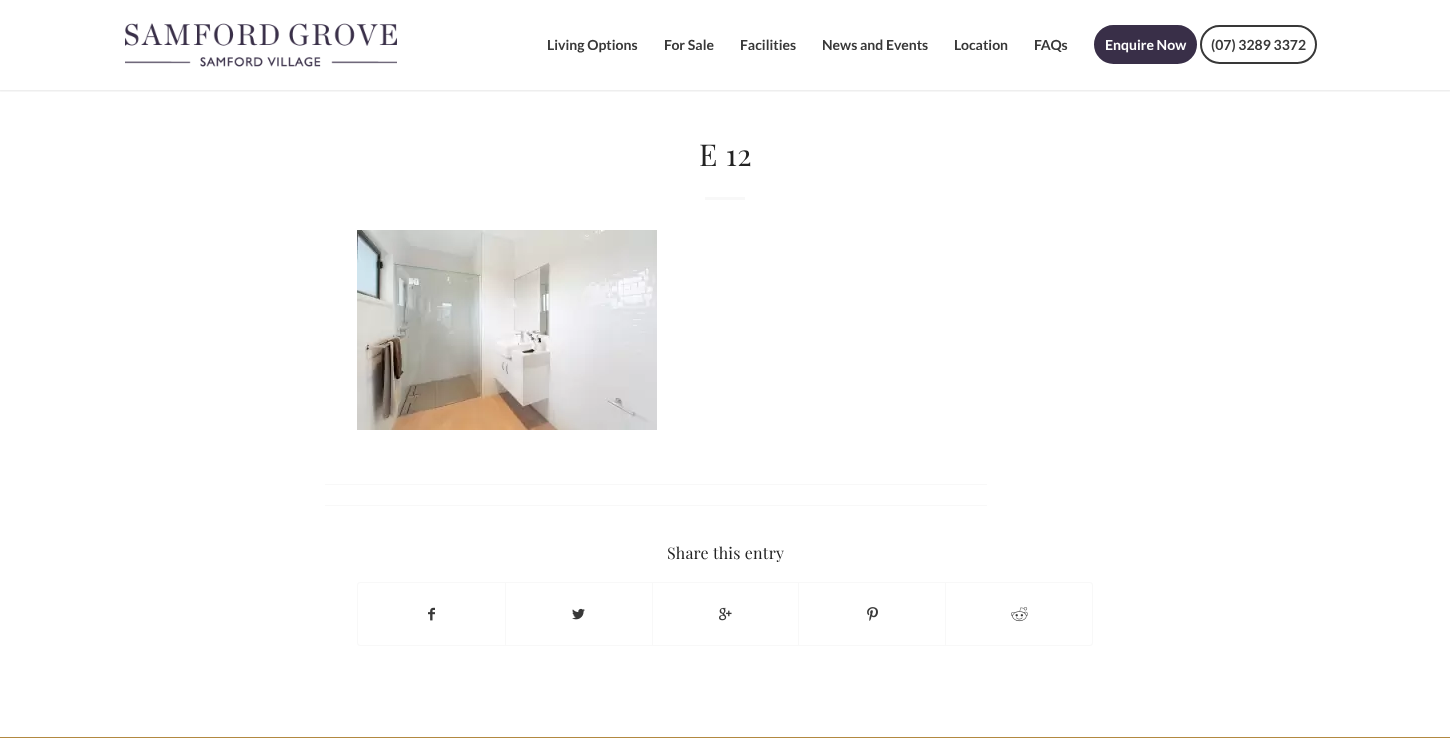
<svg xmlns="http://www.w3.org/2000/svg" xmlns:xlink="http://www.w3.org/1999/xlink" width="1450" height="746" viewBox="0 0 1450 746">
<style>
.cls-1{font:bold 14px Lato;fill:#383838}
.cls-2{font:bold 14px Lato;fill:#ffffff}
.cls-3{font:30px Playfair Display;letter-spacing:0.5px;fill:#222222}
.cls-4{font:16px Playfair Display;letter-spacing:0.2px;fill:#222222}
</style>
<defs>
<clipPath id="clip1"><rect x="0" y="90" width="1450" height="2"/></clipPath>
</defs>
<rect width="100%" height="100%" fill="#ffffff"/>
<g clip-path="url(#clip1)">
<rect fill="#000000" fill-opacity="0.1" filter="blur(1px)" x="-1" y="-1" width="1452" height="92"/>
</g>
<image xlink:href="image0.png" x="125" y="23" width="272" height="44"/>
<rect fill="#392f48" stroke="#392f48" stroke-width="2" x="1095" y="26" width="101" height="37" rx="18.5"/>
<rect fill="none" stroke="#383838" stroke-width="2" x="1201" y="26" width="115" height="37" rx="18.5"/>
<rect fill="#f8f8f8" x="705" y="197" width="40" height="3"/>
<image xlink:href="image1.png" x="357" y="230" width="300" height="200"/>
<rect fill="#f8f8f8" x="325" y="484" width="662" height="1"/>
<rect fill="#f8f8f8" x="325" y="505" width="662" height="1"/>
<rect fill="none" stroke="#f8f8f8" x="357.5" y="582.5" width="735" height="63" rx="2.5"/>
<image xlink:href="image2.png" x="428" y="607" width="7" height="14"/>
<rect fill="#f8f8f8" x="505" y="583" width="1" height="62"/>
<image xlink:href="image3.png" x="572" y="608" width="13" height="12"/>
<rect fill="#f8f8f8" x="652" y="583" width="1" height="62"/>
<image xlink:href="image4.png" x="719" y="607" width="13" height="14"/>
<rect fill="#f8f8f8" x="798" y="583" width="1" height="62"/>
<image xlink:href="image5.png" x="867" y="607" width="11" height="14"/>
<rect fill="#f8f8f8" x="945" y="583" width="1" height="62"/>
<image xlink:href="image6.png" x="1011" y="607" width="17" height="15"/>
<rect fill="#b28840" x="0" y="737" width="1450" height="1"/>
<text class="cls-1" x="547" y="50">Living Options</text>
<text class="cls-1" x="664" y="50">For Sale</text>
<text class="cls-1" x="740" y="50">Facilities</text>
<text class="cls-1" x="822" y="50">News and Events</text>
<text class="cls-1" x="954" y="50">Location</text>
<text class="cls-1" x="1034" y="50">FAQs</text>
<text class="cls-2" x="1105" y="50">Enquire Now</text>
<text class="cls-1" x="1211" y="50">(07) 3289 3372</text>
<text class="cls-3" x="699" y="166">E 12</text>
<text class="cls-4" x="667" y="559">Share this entry</text>
</svg>
